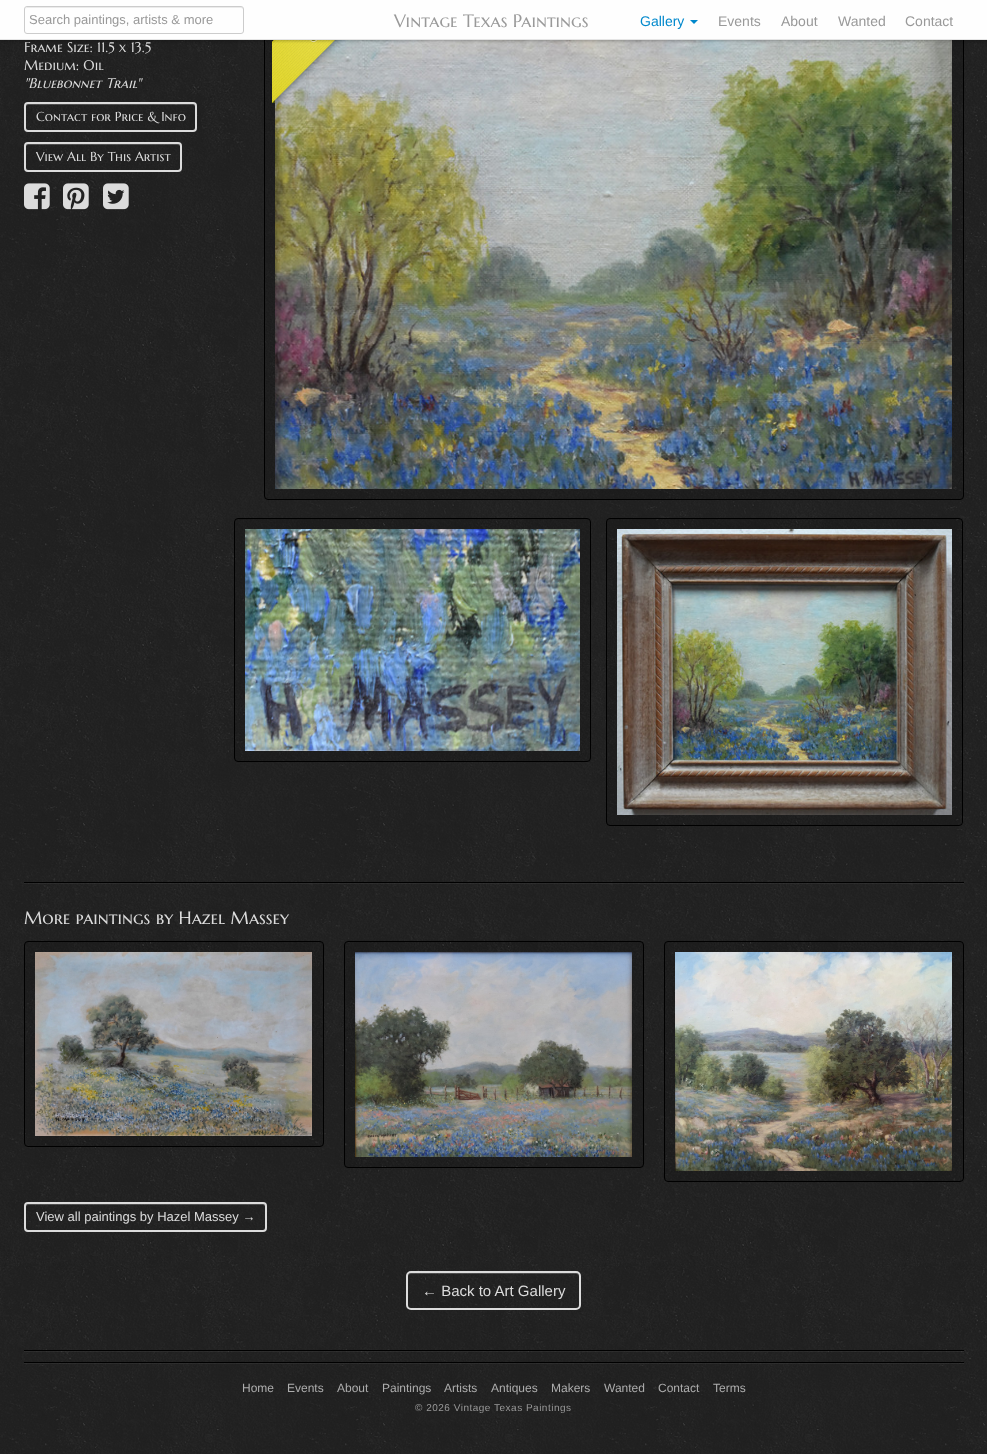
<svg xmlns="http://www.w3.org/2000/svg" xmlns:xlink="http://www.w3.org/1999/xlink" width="987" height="1454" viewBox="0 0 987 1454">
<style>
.cls-1{font:13px Liberation Sans;fill:#999999}
.cls-2{font:18px Marcellus SC;fill:#999999}
.cls-3{font:14px Liberation Sans;fill:#0088cc}
.cls-4{font:14px Liberation Sans;fill:#999999}
.cls-5{font:14px Marcellus SC;fill:#dcdcdc}
.cls-6{font:italic 14px Marcellus SC;fill:#dcdcdc}
.cls-7{font:13px Marcellus SC;fill:#dcdcdc}
.cls-8{font:18px Marcellus SC;fill:#dcdcdc}
.cls-9{font:13px Liberation Sans;fill:#dcdcdc}
.cls-10{font:15px Liberation Sans;fill:#dcdcdc}
.cls-11{font:12px Liberation Sans;fill:#adadad}
.cls-12{font:10px Liberation Sans;letter-spacing:0.5px;fill:#999999}
</style>
<rect width="100%" height="100%" fill="#ffffff"/>
<image xlink:href="image0.png" x="0" y="40" width="987" height="1414"/>
<rect fill="#000000" fill-opacity="0.1" stroke="#000000" x="264.5" y="-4.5" width="699" height="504" rx="3.5"/>
<image xlink:href="image4.png" x="275" y="40" width="677" height="449"/>
<image xlink:href="image5.png" x="272" y="40" width="74" height="64"/>
<rect fill="#000000" fill-opacity="0.25" filter="blur(1.5px)" x="0" y="1" width="987" height="40"/>
<rect fill="#fefefe" x="0" y="0" width="987" height="39"/>
<rect fill="#e5e5e5" x="0" y="39" width="987" height="1"/>
<path fill="#ebebeb" d="M27 8H241C242 8 243 9 243 10C243 9 243 7 241 7H27L26 8L25 10C25 9 26 8 27 8Z"/>
<rect fill="none" stroke="#cccccc" x="24.5" y="6.5" width="219" height="27" rx="2.5"/>
<path fill="#0088cc" d="M690 20H698L694 24Z"/>
<rect fill="#000000" x="24" y="882" width="940" height="1"/>
<path fill="#ffffff" fill-opacity="0.2" d="M28 105H193C194 105 195 106 195 107C195 106 195 104 193 104H28C26 104 26 106 26 107C26 106 27 105 28 105Z"/>
<rect fill="none" stroke="#dcdcdc" stroke-width="2" x="25" y="103" width="171" height="28" rx="3"/>
<path fill="#ffffff" fill-opacity="0.2" d="M28 145H178C179 145 180 146 180 147C180 138 155 144 153 144H27C26 145 26 146 26 147C26 146 27 145 28 145Z"/>
<rect fill="none" stroke="#dcdcdc" stroke-width="2" x="25" y="143" width="156" height="28" rx="3"/>
<image xlink:href="image1.png" x="24" y="183" width="26" height="27"/>
<image xlink:href="image2.png" x="63" y="183" width="26" height="27"/>
<image xlink:href="image3.png" x="103" y="183" width="26" height="27"/>
<rect fill="#000000" fill-opacity="0.1" stroke="#000000" x="234.5" y="518.5" width="356" height="243" rx="3.5"/>
<image xlink:href="image6.png" x="245" y="529" width="335" height="222"/>
<rect fill="#000000" fill-opacity="0.1" stroke="#000000" x="606.5" y="518.5" width="356" height="307" rx="3.5"/>
<image xlink:href="image7.png" x="617" y="529" width="335" height="286"/>
<rect fill="#ffffff" fill-opacity="0.05" x="24" y="883" width="940" height="1"/>
<rect fill="#000000" fill-opacity="0.1" stroke="#000000" x="24.5" y="941.5" width="299" height="205" rx="3.5"/>
<image xlink:href="image8.png" x="35" y="952" width="277" height="184"/>
<rect fill="#000000" fill-opacity="0.1" stroke="#000000" x="344.5" y="941.5" width="299" height="226" rx="3.5"/>
<image xlink:href="image9.png" x="355" y="952" width="277" height="205"/>
<rect fill="#000000" fill-opacity="0.1" stroke="#000000" x="664.5" y="941.5" width="299" height="240" rx="3.5"/>
<image xlink:href="image10.png" x="675" y="952" width="277" height="219"/>
<path fill="#ffffff" fill-opacity="0.2" d="M28 1205H263C264 1205 265 1206 265 1207C265 1206 265 1204 263 1204H28L26 1205V1207C26 1206 27 1205 28 1205Z"/>
<rect fill="none" stroke="#dcdcdc" stroke-width="2" x="25" y="1203" width="241" height="28" rx="3"/>
<path fill="#ffffff" fill-opacity="0.2" d="M411 1274H576C578 1274 579 1275 579 1277V1276C579 1274 578 1273 576 1273H411C409 1273 408 1274 408 1276V1277C408 1275 409 1274 411 1274Z"/>
<rect fill="none" stroke="#dcdcdc" stroke-width="2" x="407" y="1272" width="173" height="37" rx="4"/>
<rect fill="#000000" x="24" y="1350" width="940" height="1"/>
<rect fill="#ffffff" fill-opacity="0.05" x="24" y="1351" width="940" height="1"/>
<rect fill="#000000" x="24" y="1362" width="940" height="1"/>
<rect fill="#ffffff" fill-opacity="0.05" x="24" y="1363" width="940" height="1"/>
<text class="cls-1" x="29" y="24">Search paintings, artists &amp; more</text>
<text class="cls-2" x="394" y="27">Vintage Texas Paintings</text>
<text class="cls-3" x="640" y="26">Gallery</text>
<text class="cls-4" x="718" y="26">Events</text>
<text class="cls-4" x="781" y="26">About</text>
<text class="cls-4" x="838" y="26">Wanted</text>
<text class="cls-4" x="905" y="26">Contact</text>
<text class="cls-5"><tspan x="24" y="52">Frame Size: 11.5 x 13.5</tspan><tspan x="24" y="70">Medium: Oil</tspan></text>
<text class="cls-6" x="24" y="88">"Bluebonnet Trail"</text>
<text class="cls-7" x="36" y="121">Contact for Price &amp; Info</text>
<text class="cls-7" x="36" y="161">View All By This Artist</text>
<text class="cls-8" x="24" y="924">More paintings by Hazel Massey</text>
<text class="cls-9" x="36" y="1221">View all paintings by Hazel Massey →</text>
<text class="cls-10" x="422" y="1296">← Back to Art Gallery</text>
<text class="cls-11" x="242" y="1392">Home</text>
<text class="cls-11" x="287" y="1392">Events</text>
<text class="cls-11" x="337" y="1392">About</text>
<text class="cls-11" x="382" y="1392">Paintings</text>
<text class="cls-11" x="444" y="1392">Artists</text>
<text class="cls-11" x="491" y="1392">Antiques</text>
<text class="cls-11" x="551" y="1392">Makers</text>
<text class="cls-11" x="604" y="1392">Wanted</text>
<text class="cls-11" x="658" y="1392">Contact</text>
<text class="cls-11" x="713" y="1392">Terms</text>
<text class="cls-12" x="415" y="1411">© 2026 Vintage Texas Paintings</text>
</svg>
